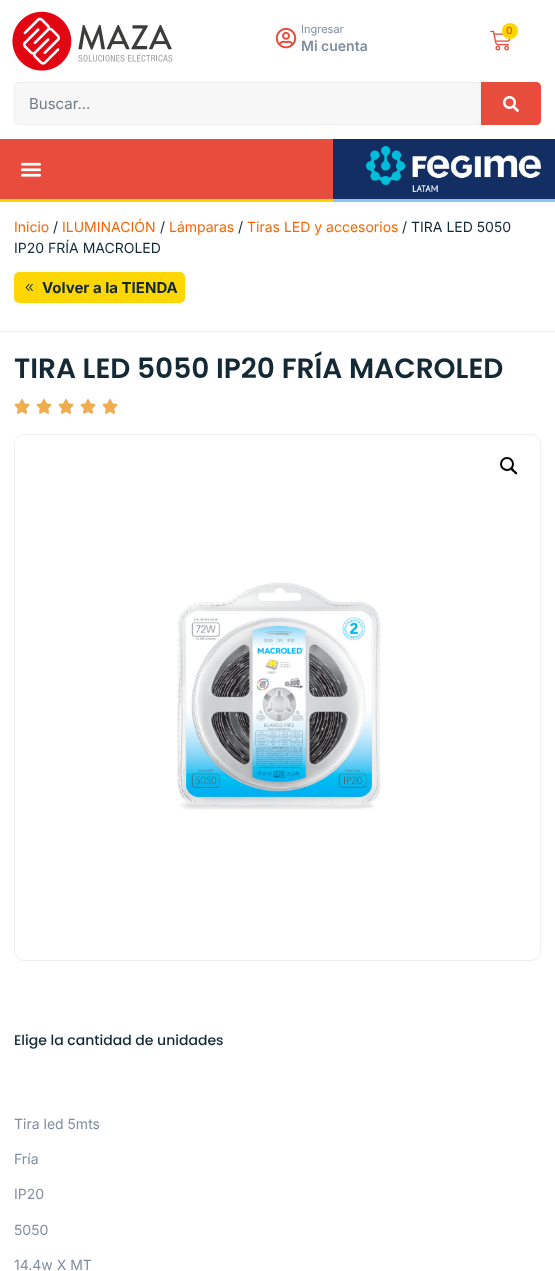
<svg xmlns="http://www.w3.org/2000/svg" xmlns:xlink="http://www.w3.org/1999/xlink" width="555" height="1271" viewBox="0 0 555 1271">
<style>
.cls-1{font:11px Inter;fill:#818ea0}
.cls-2{font:600 14px Inter;fill:#818ea0}
.cls-3{font:500 10px Inter;fill:#e74c3c}
.cls-4{font:15px Inter;fill:#6e7c83}
.cls-5{font:14px Inter;fill:#fa6602}
.cls-6{font:14px Inter;fill:#132a36}
.cls-7{font:bold 15px Inter;fill:#132a36}
.cls-8{font:600 28px Poppins;fill:#132a36}
.cls-9{font:500 14px Poppins;fill:#132a36}
.cls-10{font:14px Inter;fill:#818ea0}
</style>
<rect width="100%" height="100%" fill="#ffffff"/>
<image xlink:href="image0.png" x="12" y="11" width="161" height="60"/>
<image xlink:href="image1.png" x="275" y="28" width="22" height="21"/>
<image xlink:href="image2.png" x="490" y="30" width="21" height="21"/>
<circle fill="#fed700" cx="510" cy="31" r="8"/>
<rect fill="#f1f2f3" x="14" y="82" width="527" height="43" rx="5"/>
<rect fill="#f7f7f7" stroke="#ecf0f0" x="14.5" y="82.5" width="466" height="42" rx="4.5"/>
<path fill="#e74c3c" d="M481 82H536C539 82 541 84 541 87V120C541 123 539 125 536 125H481Z"/>
<image xlink:href="image3.png" x="503" y="96" width="16" height="16"/>
<rect fill="#e74c3c" x="0" y="139" width="333" height="60"/>
<rect fill="#fed700" x="0" y="199" width="333" height="3"/>
<image xlink:href="image4.png" x="20" y="162" width="22" height="15"/>
<rect fill="#122e63" x="333" y="139" width="222" height="60"/>
<rect fill="#8fc5ec" x="333" y="199" width="222" height="3"/>
<image xlink:href="image5.png" x="366" y="146" width="175" height="46"/>
<rect fill="#ecf0f0" x="0" y="331" width="555" height="1"/>
<rect fill="#fed700" x="14" y="272" width="171" height="31" rx="5"/>
<image xlink:href="image6.png" x="25" y="283" width="8" height="8"/>
<image xlink:href="image7.png" x="14" y="399" width="16" height="15"/>
<image xlink:href="image8.png" x="14" y="399" width="16" height="15"/>
<image xlink:href="image7.png" x="36" y="399" width="16" height="15"/>
<image xlink:href="image8.png" x="36" y="399" width="16" height="15"/>
<image xlink:href="image7.png" x="58" y="399" width="16" height="15"/>
<image xlink:href="image8.png" x="58" y="399" width="16" height="15"/>
<image xlink:href="image7.png" x="80" y="399" width="16" height="15"/>
<image xlink:href="image8.png" x="80" y="399" width="16" height="15"/>
<image xlink:href="image7.png" x="102" y="399" width="16" height="15"/>
<image xlink:href="image8.png" x="102" y="399" width="16" height="15"/>
<rect fill="none" stroke="#ecf0f0" x="14.5" y="434.5" width="526" height="526" rx="9.5"/>
<image xlink:href="image9.png" x="177" y="582" width="204" height="228"/>
<circle fill="none" stroke="#000000" stroke-width="2" cx="507" cy="464" r="6"/>
<path fill="#000000" d="M511 468.5C512.5 467 514 470 514.5 470.5C515.5 471 518 473 517 474C515.5 475.5 514 472.5 513.5 472C512.5 471.5 510 469.5 511 468.5Z"/>
<text class="cls-1" x="301" y="33">Ingresar</text>
<text class="cls-2" x="301" y="51">Mi cuenta</text>
<text class="cls-3" x="506" y="34">0</text>
<text class="cls-4" x="29" y="109">Buscar...</text>
<text class="cls-5" x="14" y="232">Inicio</text>
<text class="cls-6" x="53" y="232">/</text>
<text class="cls-5" x="62" y="232">ILUMINACIÓN</text>
<text class="cls-6" x="160" y="232">/</text>
<text class="cls-5" x="169" y="232">Lámparas</text>
<text class="cls-6" x="238" y="232">/</text>
<text class="cls-5" x="247" y="232">Tiras LED y accesorios</text>
<text class="cls-6" x="402" y="232">/ TIRA LED 5050</text>
<text class="cls-6" x="14" y="253">IP20 FRÍA MACROLED</text>
<text class="cls-7" x="42" y="293">Volver a la TIENDA</text>
<text class="cls-8" x="14" y="378">TIRA LED 5050 IP20 FRÍA MACROLED</text>
<text class="cls-9" x="14" y="1045">Elige la cantidad de unidades</text>
<text class="cls-10" x="14" y="1129">Tira led 5mts</text>
<text class="cls-10" x="14" y="1164">Fría</text>
<text class="cls-10" x="14" y="1199">IP20</text>
<text class="cls-10" x="14" y="1235">5050</text>
<text class="cls-10" x="14" y="1270">14.4w X MT</text>
</svg>
